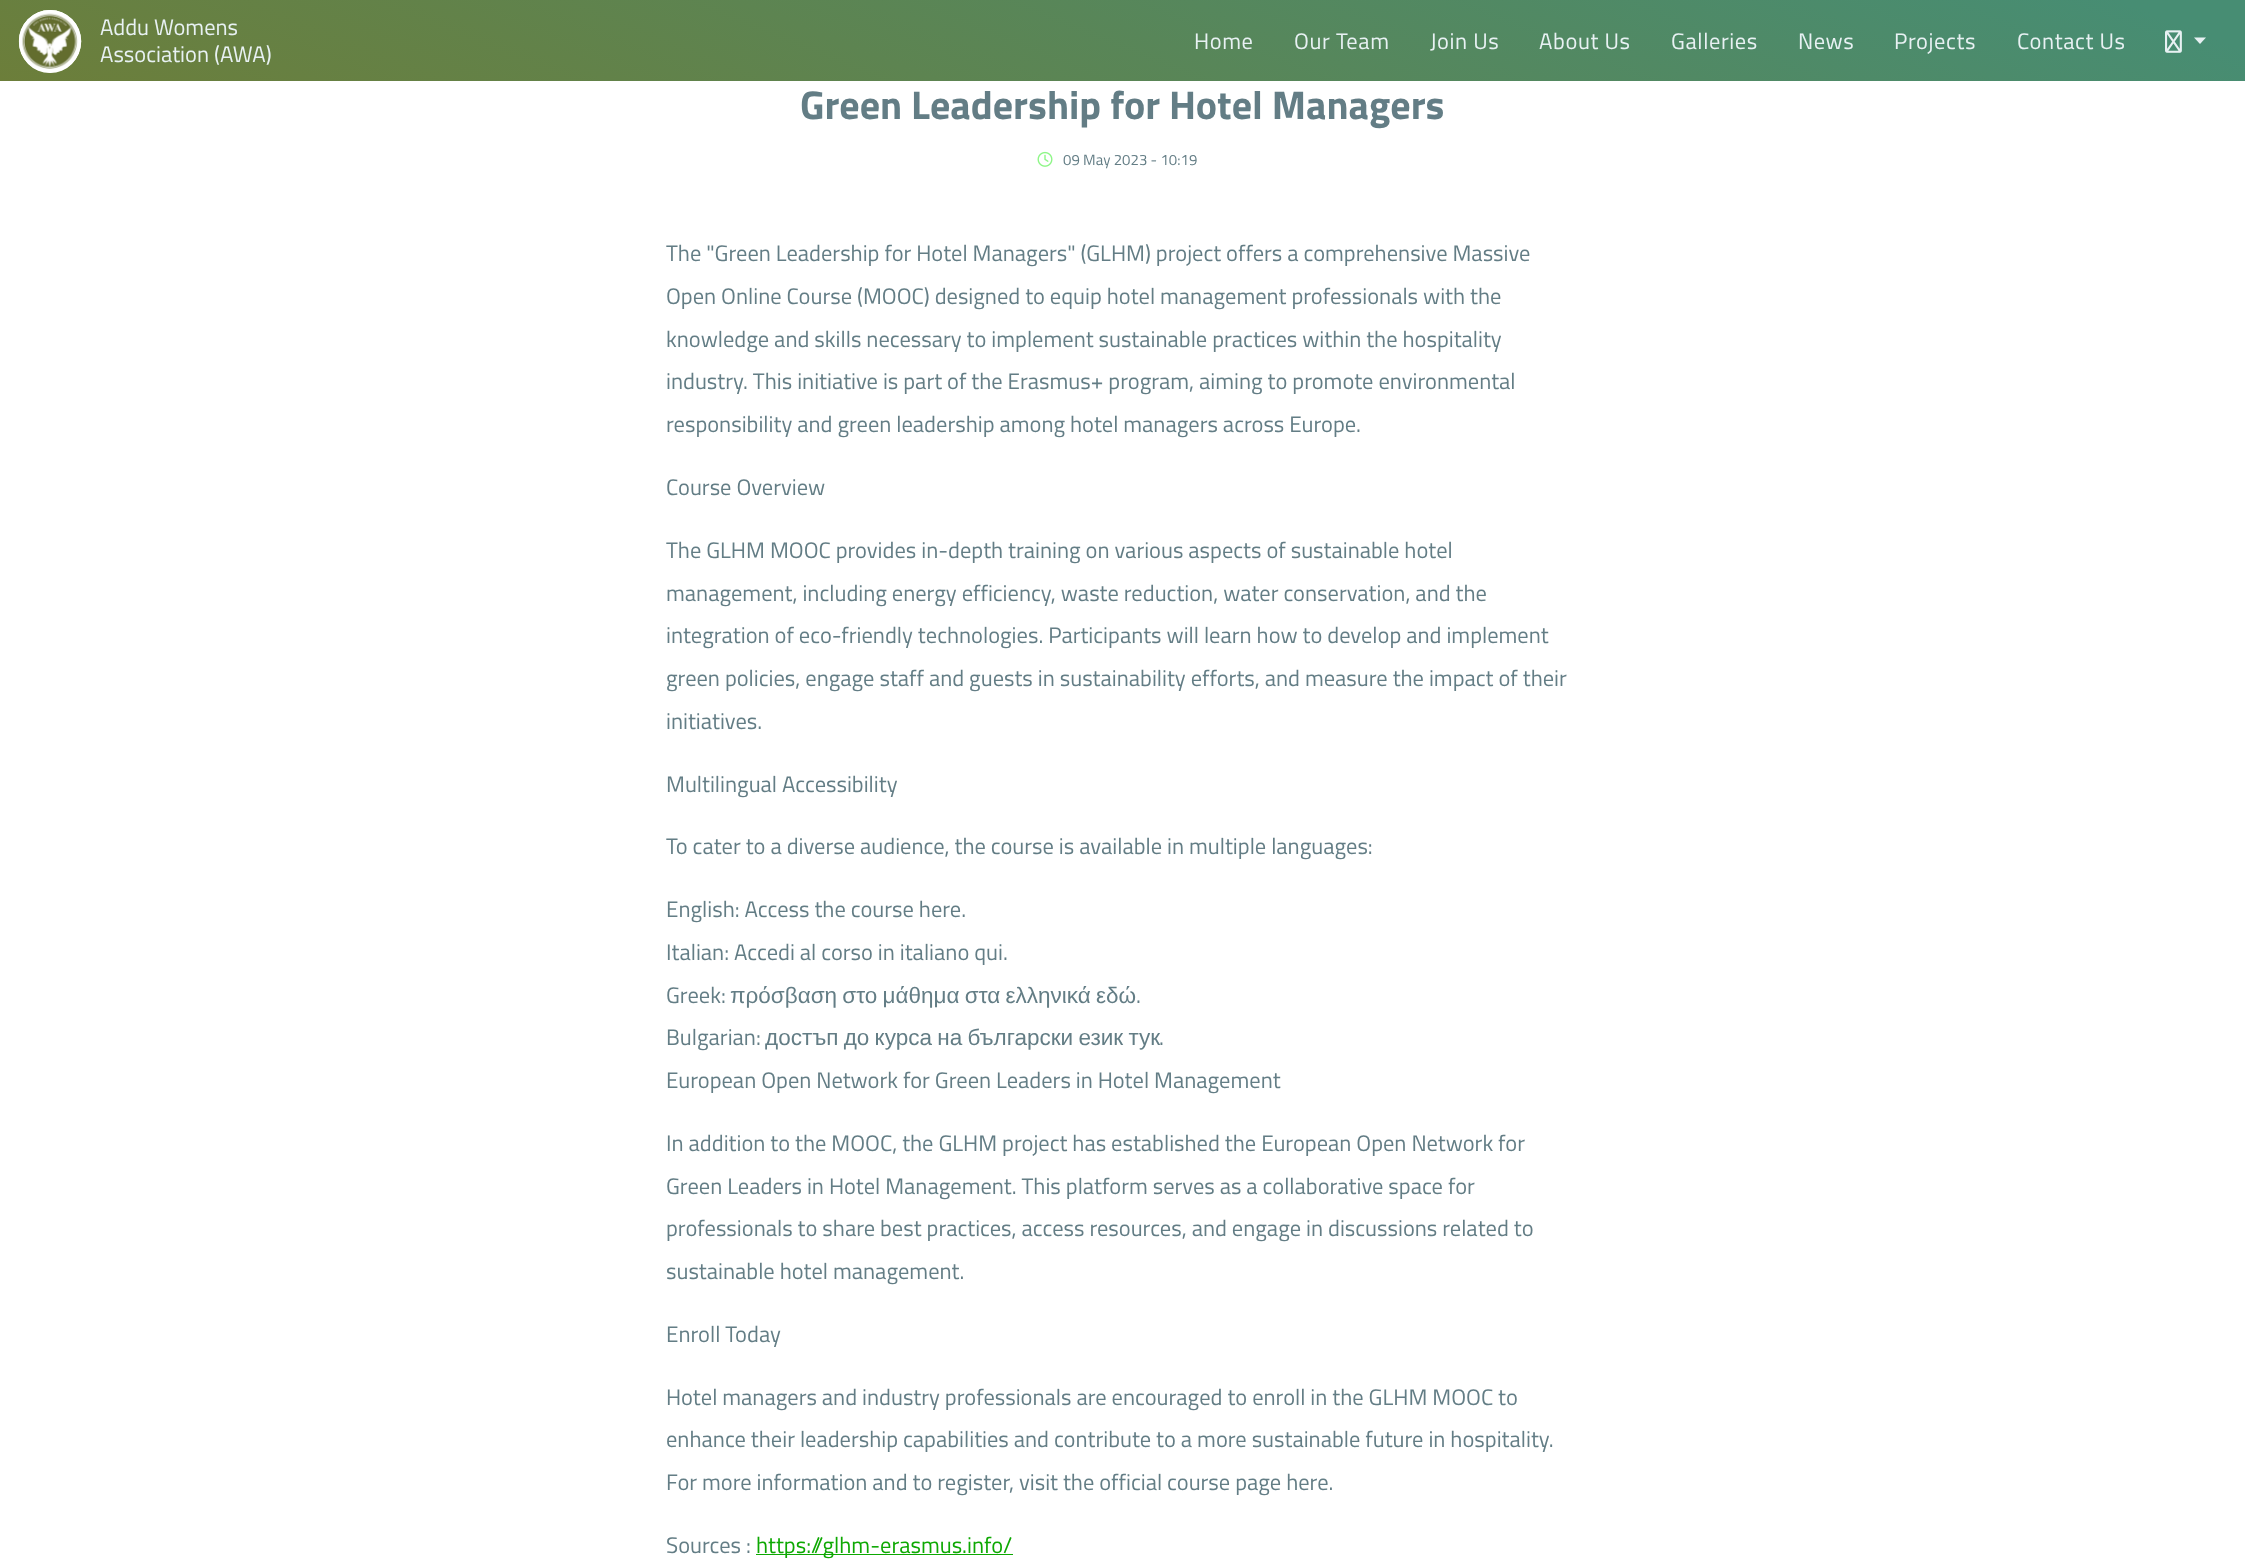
<svg xmlns="http://www.w3.org/2000/svg" xmlns:xlink="http://www.w3.org/1999/xlink" width="2245" height="1564" viewBox="0 0 2245 1564">
<style>
.cls-1{font:22.5px Titillium Web;fill:#e8f1f3}
.cls-2{font:22.5px Titillium Web;letter-spacing:0.6px;fill:#e8f1f3}
.cls-3{font:bold 40px Titillium Web;fill:#637d85}
.cls-4{font:15px Titillium Web;fill:#637d85}
.cls-5{font:22.5px Titillium Web;fill:#637d85}
.cls-6{font:22.5px Liberation Sans;fill:#637d85}
.cls-7{font:22.5px Titillium Web;fill:#0da802}
</style>
<defs>
<linearGradient id="g1" gradientUnits="userSpaceOnUse" x1="951" y1="465" x2="1294" y2="-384"><stop offset="0" stop-color="#6c7e3a"/><stop offset="0.95" stop-color="#478d73"/></linearGradient>
</defs>
<rect width="100%" height="100%" fill="#ffffff"/>
<rect fill="url(#g1)" x="0" y="0" width="2245" height="81"/>
<rect fill="#ffffff" x="19" y="10" width="62" height="63" rx="31"/>
<image xlink:href="image0.png" x="18" y="10" width="64" height="63"/>
<image xlink:href="image1.png" x="2165" y="30" width="17" height="23"/>
<path fill="#e8f1f3" d="M2194 37.5H2206L2200 44Z"/>
<image xlink:href="image2.png" x="1037" y="151" width="16" height="16"/>
<rect fill="#0da802" x="756" y="1554" width="257" height="1"/>
<text class="cls-1"><tspan x="100" y="35">Addu Womens</tspan><tspan x="100" y="62">Association (AWA)</tspan></text>
<text class="cls-2" x="1194" y="49">Home</text>
<text class="cls-2" x="1294" y="49">Our Team</text>
<text class="cls-2" x="1430" y="49">Join Us</text>
<text class="cls-2" x="1539" y="49">About Us</text>
<text class="cls-2" x="1671" y="49">Galleries</text>
<text class="cls-2" x="1798" y="49">News</text>
<text class="cls-2" x="1894" y="49">Projects</text>
<text class="cls-2" x="2017" y="49">Contact Us</text>
<text class="cls-3" x="800" y="119">Green Leadership for Hotel Managers</text>
<text class="cls-4" x="1063" y="165">09 May 2023 - 10:19</text>
<text class="cls-5"><tspan x="666" y="261">The "Green Leadership for Hotel Managers" (GLHM) project offers a comprehensive Massive</tspan><tspan x="666" y="304">Open Online Course (MOOC) designed to equip hotel management professionals with the</tspan><tspan x="666" y="347">knowledge and skills necessary to implement sustainable practices within the hospitality</tspan><tspan x="666" y="389">industry. This initiative is part of the Erasmus+ program, aiming to promote environmental</tspan><tspan x="666" y="432">responsibility and green leadership among hotel managers across Europe.</tspan></text>
<text class="cls-5" x="666" y="495">Course Overview</text>
<text class="cls-5"><tspan x="666" y="558">The GLHM MOOC provides in-depth training on various aspects of sustainable hotel</tspan><tspan x="666" y="601">management, including energy efficiency, waste reduction, water conservation, and the</tspan><tspan x="666" y="643">integration of eco-friendly technologies. Participants will learn how to develop and implement</tspan><tspan x="666" y="686">green policies, engage staff and guests in sustainability efforts, and measure the impact of their</tspan><tspan x="666" y="729">initiatives.</tspan></text>
<text class="cls-5" x="666" y="792">Multilingual Accessibility</text>
<text class="cls-5" x="666" y="854">To cater to a diverse audience, the course is available in multiple languages:</text>
<text class="cls-5"><tspan x="666" y="917">English: Access the course here.</tspan><tspan x="666" y="960">Italian: Accedi al corso in italiano qui.</tspan><tspan x="666" y="1003">Greek:</tspan></text>
<text class="cls-6" x="730" y="1003" word-spacing="-1">πρόσβαση στο μάθημα στα ελληνικά εδώ</text>
<text class="cls-5" x="1136" y="1003">.</text>
<text class="cls-5" x="666" y="1045">Bulgarian:</text>
<text class="cls-6" x="765" y="1045" word-spacing="-1">достъп до курса на български език тук</text>
<text class="cls-5" x="1159" y="1045">.</text>
<text class="cls-5" x="666" y="1088">European Open Network for Green Leaders in Hotel Management</text>
<text class="cls-5"><tspan x="666" y="1151">In addition to the MOOC, the GLHM project has established the European Open Network for</tspan><tspan x="666" y="1194">Green Leaders in Hotel Management. This platform serves as a collaborative space for</tspan><tspan x="666" y="1236">professionals to share best practices, access resources, and engage in discussions related to</tspan><tspan x="666" y="1279">sustainable hotel management.</tspan></text>
<text class="cls-5" x="666" y="1342">Enroll Today</text>
<text class="cls-5"><tspan x="666" y="1405">Hotel managers and industry professionals are encouraged to enroll in the GLHM MOOC to</tspan><tspan x="666" y="1447">enhance their leadership capabilities and contribute to a more sustainable future in hospitality.</tspan><tspan x="666" y="1490">For more information and to register, visit the official course page here.</tspan></text>
<text class="cls-5" x="666" y="1553">Sources :</text>
<text class="cls-7" x="756" y="1553">https://glhm-erasmus.info/</text>
</svg>
